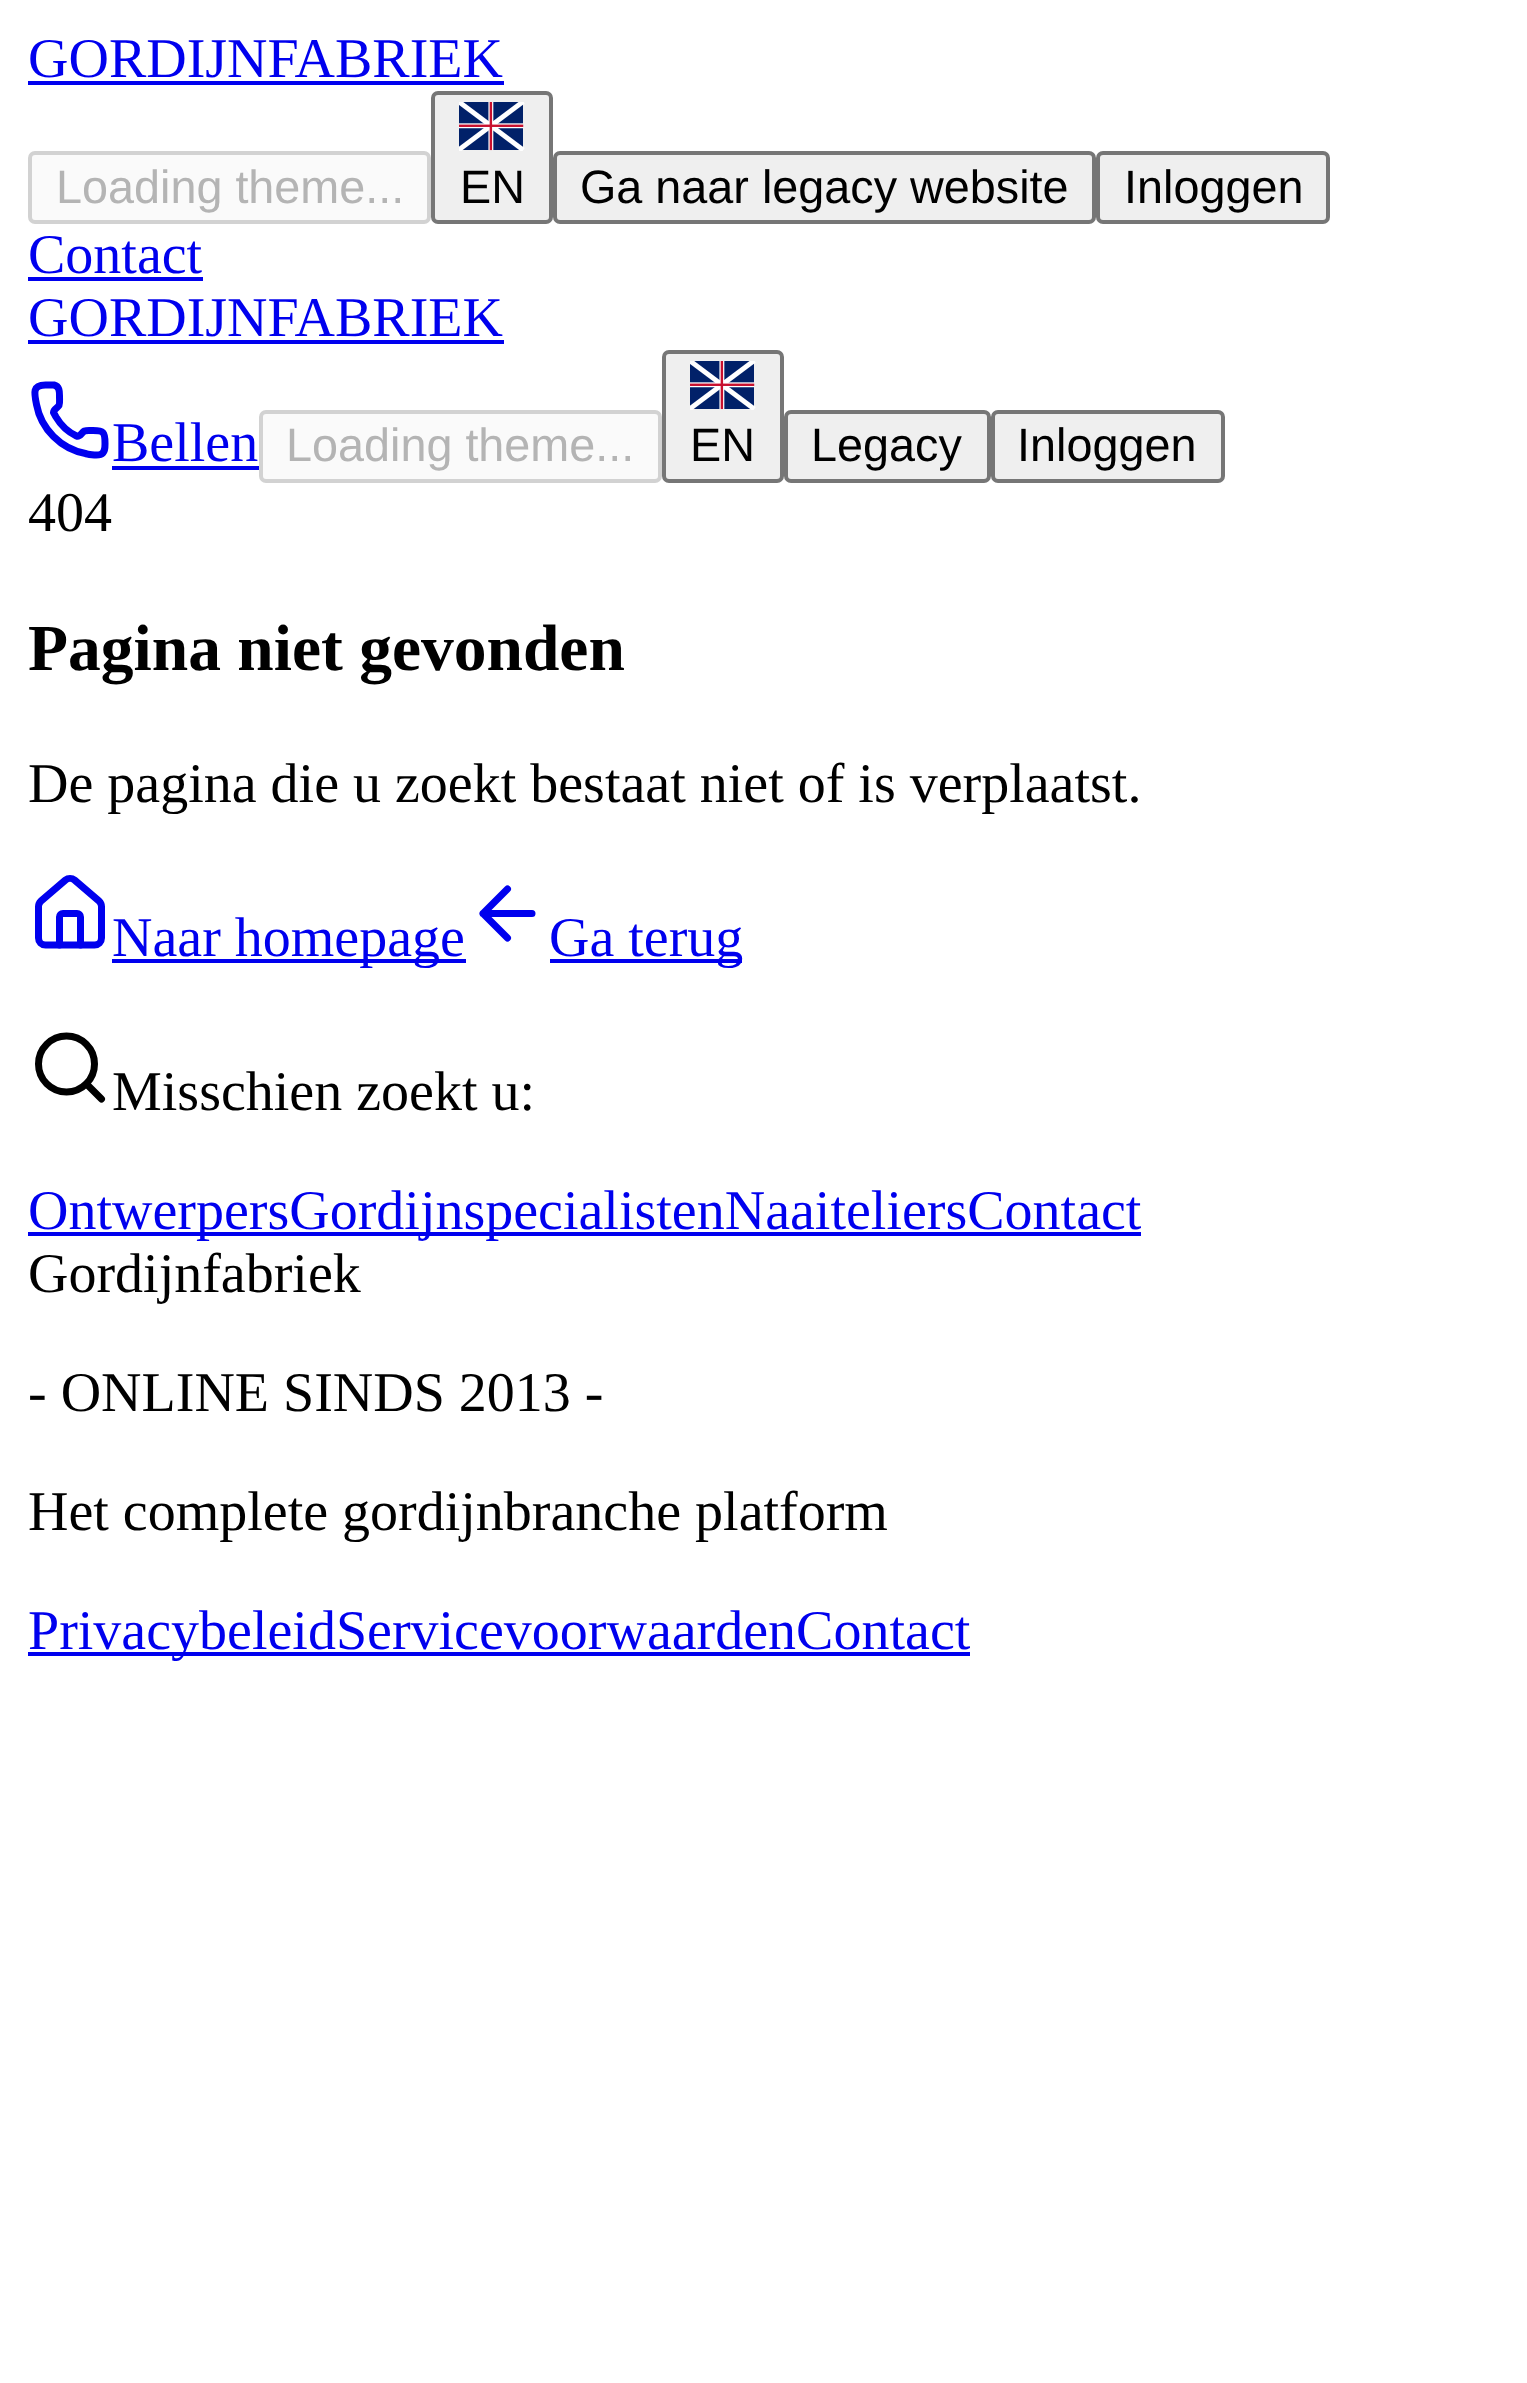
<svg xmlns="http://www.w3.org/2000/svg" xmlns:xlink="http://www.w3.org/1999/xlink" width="1527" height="2383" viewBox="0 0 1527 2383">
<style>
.cls-1{font:56px Liberation Serif;fill:#0000ee}
.cls-2{font:46.75px Liberation Sans;fill:#b4b4b4}
.cls-3{font:46.75px Liberation Sans;fill:#000000}
.cls-4{font:56px Liberation Serif;fill:#000000}
.cls-5{font:bold 65.5px Liberation Serif;fill:#000000}
</style>
<rect width="100%" height="100%" fill="#ffffff"/>
<rect fill="#0000ee" x="28" y="81" width="476" height="4"/>
<rect fill="#fafafa" stroke="#d2d2d2" stroke-width="4" x="30" y="153" width="399" height="69" rx="5"/>
<rect fill="#efefef" stroke="#767676" stroke-width="4" x="433" y="93" width="118" height="129" rx="5"/>
<image xlink:href="image0.png" x="459" y="102" width="66" height="49"/>
<rect fill="#efefef" stroke="#767676" stroke-width="4" x="555" y="153" width="539" height="69" rx="5"/>
<rect fill="#efefef" stroke="#767676" stroke-width="4" x="1098" y="153" width="230" height="69" rx="5"/>
<rect fill="#0000ee" x="28" y="277" width="175" height="4"/>
<rect fill="#0000ee" x="28" y="340" width="476" height="4"/>
<rect fill="#0000ee" x="112" y="466" width="147" height="4"/>
<path fill="none" stroke="#0000ee" stroke-width="7" stroke-linecap="round" stroke-linejoin="round" d="M76.5 436C80 437.5 81.5 432.5 84.5 431C87 430 90 430.5 93 430.5C103.5 430.5 105 432 105 443C105 447 105.5 452.5 100.5 454.5C96.5 456 86.5 454 85.5 453.5C61 449 41 429 36.5 404.5C34 392.5 32.5 385 45.5 385H54C60 386.5 59.5 392.5 59.5 397C59.5 400 60 403 59 405.5C57.5 408 53.5 409 53.5 412.5L56 417C61 425.5 68 432 76.5 436"/>
<rect fill="#fafafa" stroke="#d2d2d2" stroke-width="4" x="261" y="412" width="399" height="69" rx="5"/>
<rect fill="#efefef" stroke="#767676" stroke-width="4" x="664" y="352" width="118" height="129" rx="5"/>
<image xlink:href="image0.png" x="690" y="361" width="66" height="49"/>
<rect fill="#efefef" stroke="#767676" stroke-width="4" x="786" y="412" width="203" height="69" rx="5"/>
<rect fill="#efefef" stroke="#767676" stroke-width="4" x="993" y="412" width="230" height="69" rx="5"/>
<rect fill="#0000ee" x="112" y="959" width="354" height="4"/>
<path fill="none" stroke="#0000ee" stroke-width="7" stroke-linecap="round" stroke-linejoin="round" d="M80.5 945V917C80.5 915 79 913.5 77 913.5H63C61 913.5 59.5 915 59.5 917V945"/>
<path fill="none" stroke="#0000ee" stroke-width="7" stroke-linecap="round" stroke-linejoin="round" d="M38.5 906.5C38.5 904.5 39.5 902.5 41 901L65.5 880C68 878 72 878 74.5 880L99 901C100.5 902.5 101.5 904.5 101.5 906.5V938C101.5 942 98.5 945 94.5 945H45.5C41.5 945 38.5 942 38.5 938Z"/>
<rect fill="#0000ee" x="550" y="959" width="192" height="4"/>
<path fill="none" stroke="#0000ee" stroke-width="7" stroke-linecap="round" stroke-linejoin="round" d="M507.5 938L483 913.5L507.5 889M532 913.5H483"/>
<path fill="none" stroke="#000000" stroke-width="7" stroke-linecap="round" stroke-linejoin="round" d="M101.5 1099L86.5 1084"/>
<circle fill="none" stroke="#000000" stroke-width="7" cx="66.5" cy="1064" r="28"/>
<rect fill="#0000ee" x="28" y="1232" width="1113" height="4"/>
<rect fill="#0000ee" x="28" y="1652" width="767" height="4"/>
<rect fill="#0000ee" x="795" y="1652" width="175" height="4"/>
<text class="cls-1" x="28" y="77">GORDIJNFABRIEK</text>
<text class="cls-2" x="56" y="203">Loading theme...</text>
<text class="cls-3" x="460" y="203">EN</text>
<text class="cls-3" x="580" y="203">Ga naar legacy website</text>
<text class="cls-3" x="1124" y="203">Inloggen</text>
<text class="cls-1"><tspan x="28" y="273">Contact</tspan><tspan x="28" y="336">GORDIJNFABRIEK</tspan></text>
<text class="cls-1" x="112" y="461">Bellen</text>
<text class="cls-2" x="286" y="461">Loading theme...</text>
<text class="cls-3" x="690" y="461">EN</text>
<text class="cls-3" x="811" y="461">Legacy</text>
<text class="cls-3" x="1017" y="461">Inloggen</text>
<text class="cls-4" x="28" y="531">404</text>
<text class="cls-5" x="28" y="670">Pagina niet gevonden</text>
<text class="cls-4" x="28" y="802">De pagina die u zoekt bestaat niet of is verplaatst.</text>
<text class="cls-1" x="112" y="956">Naar homepage</text>
<text class="cls-1" x="549" y="956">Ga terug</text>
<text class="cls-4" x="112" y="1110">Misschien zoekt u:</text>
<text class="cls-1" x="28" y="1229">OntwerpersGordijnspecialistenNaaiteliersContact</text>
<text class="cls-4" x="28" y="1292">Gordijnfabriek</text>
<text class="cls-4" x="28" y="1411">- ONLINE SINDS 2013 -</text>
<text class="cls-4" x="28" y="1530">Het complete gordijnbranche platform</text>
<text class="cls-1" x="28" y="1649">PrivacybeleidServicevoorwaardenContact</text>
</svg>
